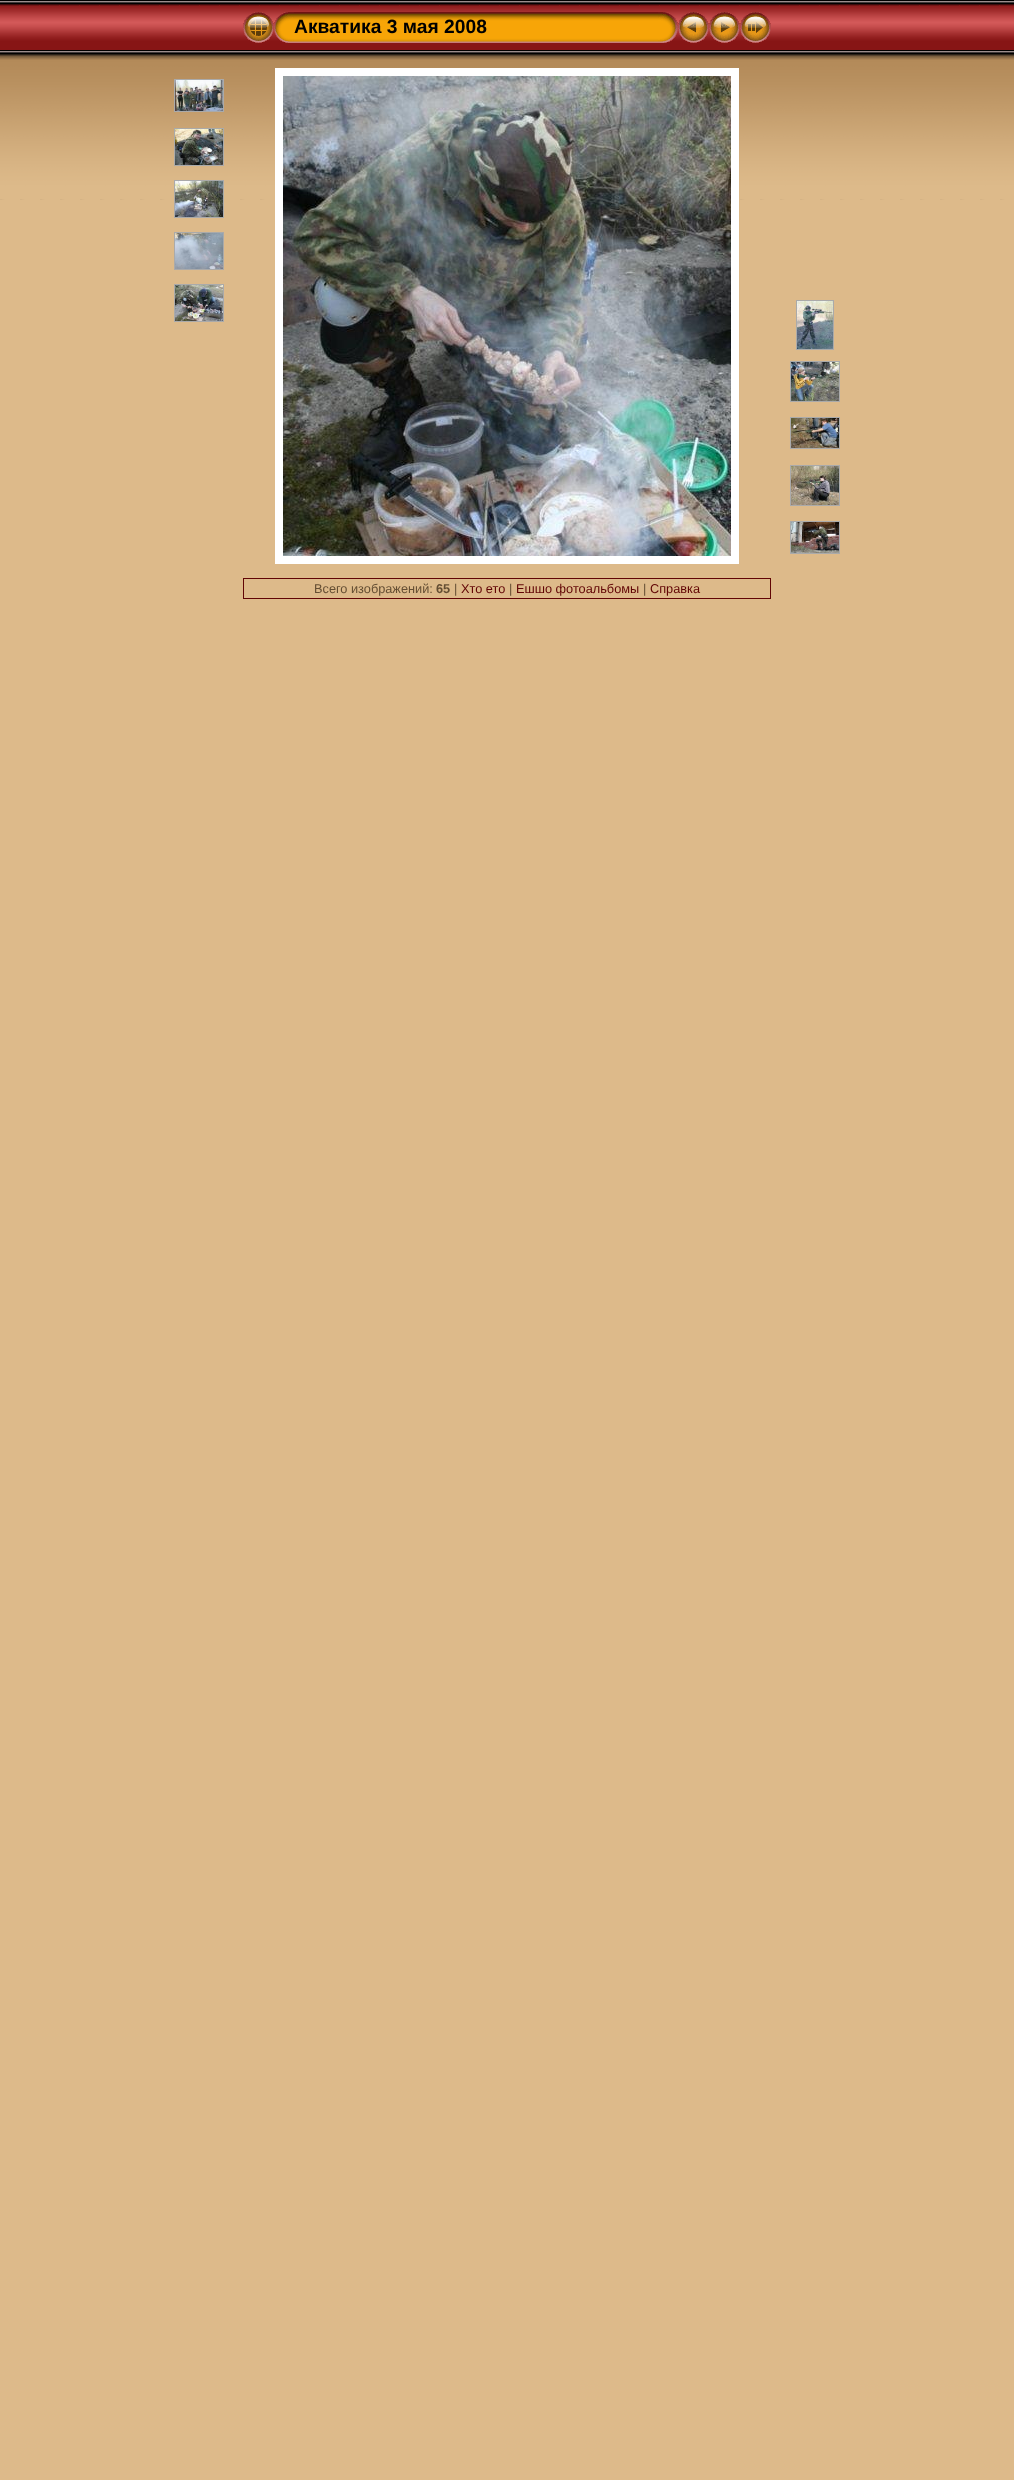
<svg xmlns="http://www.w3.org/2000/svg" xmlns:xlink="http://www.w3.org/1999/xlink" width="1014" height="2480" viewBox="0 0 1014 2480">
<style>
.cls-1{font:bold 19.25px Liberation Sans;fill:#000000}
.cls-2{font:12.75px Liberation Sans;fill:#644e33}
.cls-3{font:bold 12.75px Liberation Sans;fill:#644e33}
.cls-4{font:12.75px Liberation Sans;fill:#610505}
</style>
<rect width="100%" height="100%" fill="#ddba8a"/>
<image xlink:href="image0.png" x="0" y="0" width="1014" height="200"/>
<image xlink:href="image1.png" x="243" y="12" width="31" height="31"/>
<image xlink:href="image2.png" x="274" y="12" width="20" height="31"/>
<image xlink:href="image3.png" x="294" y="12" width="364" height="31"/>
<image xlink:href="image4.png" x="658" y="12" width="20" height="31"/>
<image xlink:href="image5.png" x="678" y="12" width="31" height="31"/>
<image xlink:href="image6.png" x="709" y="12" width="31" height="31"/>
<image xlink:href="image7.png" x="740" y="12" width="31" height="31"/>
<rect fill="none" stroke="#aaaaaa" x="174.5" y="79.5" width="49" height="32"/>
<image xlink:href="image8.png" x="175" y="80" width="48" height="31"/>
<rect fill="none" stroke="#aaaaaa" x="174.5" y="128.5" width="49" height="37"/>
<image xlink:href="image9.png" x="175" y="129" width="48" height="36"/>
<rect fill="none" stroke="#aaaaaa" x="174.5" y="180.5" width="49" height="37"/>
<image xlink:href="image10.png" x="175" y="181" width="48" height="36"/>
<rect fill="none" stroke="#aaaaaa" x="174.5" y="232.5" width="49" height="37"/>
<image xlink:href="image11.png" x="175" y="233" width="48" height="36"/>
<rect fill="none" stroke="#aaaaaa" x="174.5" y="284.5" width="49" height="37"/>
<image xlink:href="image12.png" x="175" y="285" width="48" height="36"/>
<rect fill="none" stroke="#ffffff" stroke-width="8" x="279" y="72" width="456" height="488"/>
<image xlink:href="image13.png" x="283" y="76" width="448" height="480"/>
<rect fill="none" stroke="#aaaaaa" x="796.5" y="300.5" width="37" height="49"/>
<image xlink:href="image14.png" x="797" y="301" width="36" height="48"/>
<rect fill="none" stroke="#aaaaaa" x="790.5" y="361.5" width="49" height="40"/>
<image xlink:href="image15.png" x="791" y="362" width="48" height="39"/>
<rect fill="none" stroke="#aaaaaa" x="790.5" y="417.5" width="49" height="31"/>
<image xlink:href="image16.png" x="791" y="418" width="48" height="30"/>
<rect fill="none" stroke="#aaaaaa" x="790.5" y="465.5" width="49" height="40"/>
<image xlink:href="image17.png" x="791" y="466" width="48" height="39"/>
<rect fill="none" stroke="#aaaaaa" x="790.5" y="521.5" width="49" height="32"/>
<image xlink:href="image18.png" x="791" y="522" width="48" height="31"/>
<rect fill="#610505" x="243" y="578" width="528" height="1"/>
<rect fill="#610505" x="770" y="578" width="1" height="21"/>
<rect fill="#610505" x="243" y="598" width="528" height="1"/>
<rect fill="#610505" x="243" y="578" width="1" height="21"/>
<text class="cls-1" x="294" y="33">Акватика 3 мая 2008</text>
<text class="cls-2" x="314" y="593">Всего изображений:</text>
<text class="cls-3" x="436" y="593">65</text>
<text class="cls-2" x="454" y="593">|</text>
<text class="cls-4" x="461" y="593">Хто ето</text>
<text class="cls-2" x="509" y="593">|</text>
<text class="cls-4" x="516" y="593">Ешшо фотоальбомы</text>
<text class="cls-2" x="643" y="593">|</text>
<text class="cls-4" x="650" y="593">Справка</text>
</svg>
